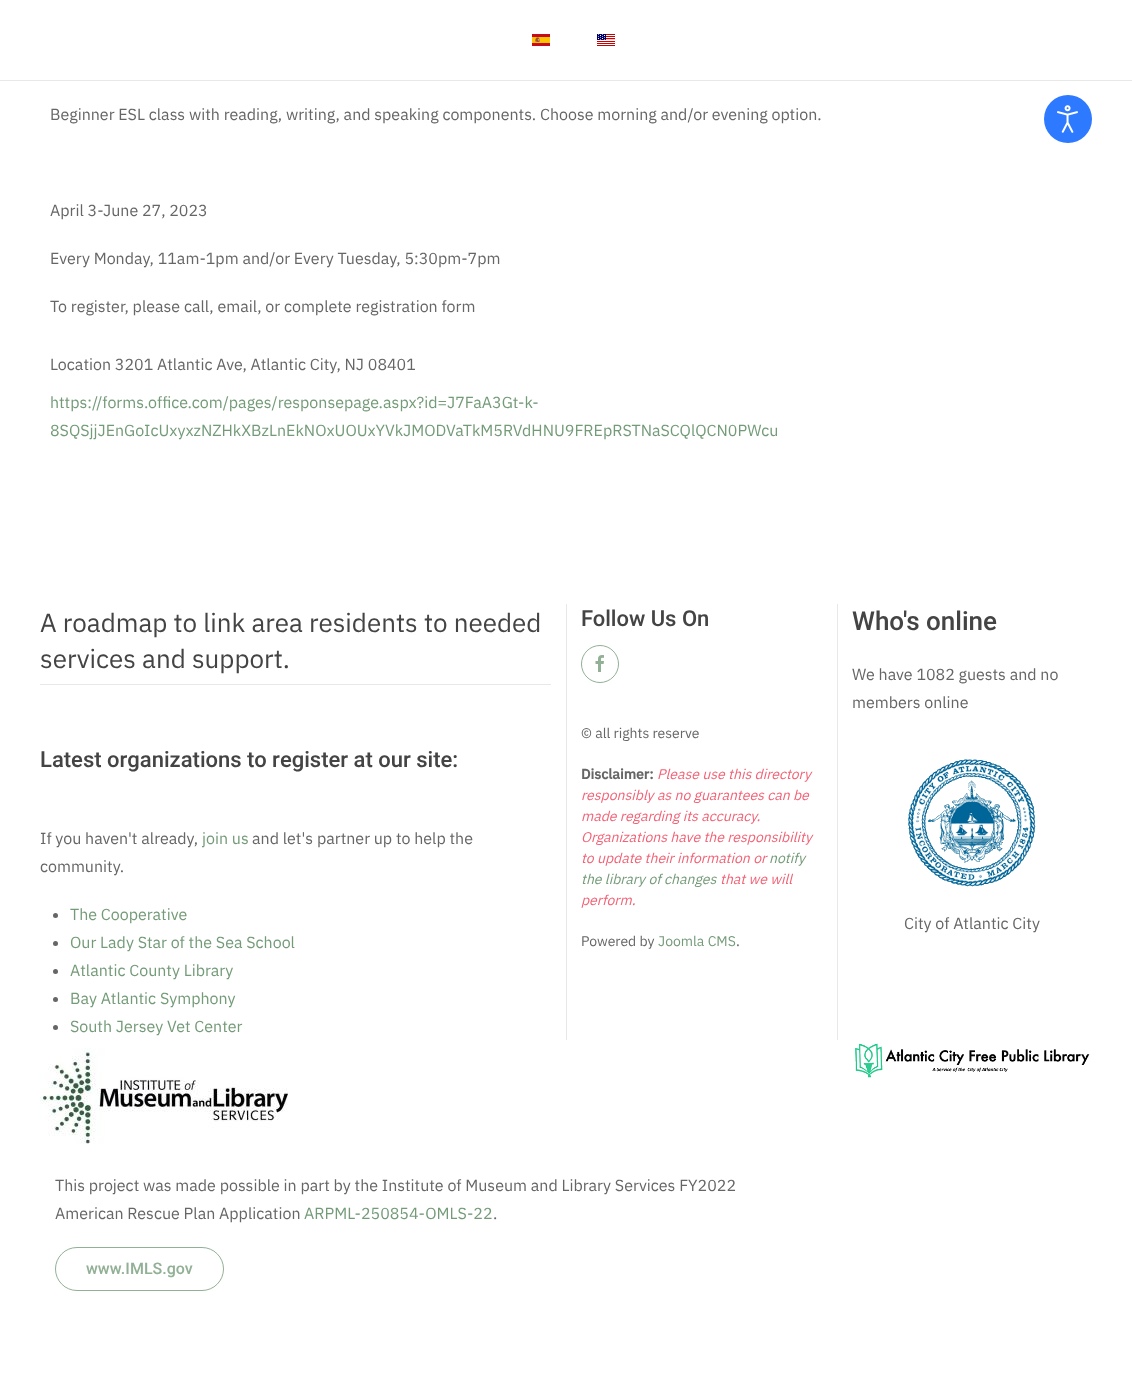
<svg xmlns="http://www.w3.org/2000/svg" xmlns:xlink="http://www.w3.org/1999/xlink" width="1132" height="1374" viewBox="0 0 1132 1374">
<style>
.cls-1{font:16px IBM Plex Sans;fill:#666666}
.cls-2{font:16px IBM Plex Sans;fill:#749b78}
.cls-3{font:26px IBM Plex Sans;fill:#444444}
.cls-4{font:500 22px Heebo;fill:#444444}
.cls-5{font:14px IBM Plex Sans;fill:#666666}
.cls-6{font:bold 14px IBM Plex Sans;fill:#666666}
.cls-7{font:italic 14px IBM Plex Sans;fill:#f16376}
.cls-8{font:italic 14px IBM Plex Sans;fill:#749b78}
.cls-9{font:14px IBM Plex Sans;fill:#749b78}
.cls-10{font:500 26px Heebo;fill:#444444}
.cls-11{font:500 16px Heebo;fill:#92b095}
</style>
<rect width="100%" height="100%" fill="#ffffff"/>
<rect fill="#e8e8e8" x="0" y="80" width="1132" height="1"/>
<image xlink:href="image0.png" x="532" y="34" width="18" height="12"/>
<image xlink:href="image1.png" x="597" y="34" width="18" height="12"/>
<rect fill="#e8e8e8" x="40" y="684" width="511" height="1"/>
<circle fill="#666666" cx="55.5" cy="915.5" r="2.5"/>
<circle fill="#666666" cx="55.5" cy="943.5" r="2.5"/>
<circle fill="#666666" cx="55.5" cy="971.5" r="2.5"/>
<circle fill="#666666" cx="55.5" cy="999.5" r="2.5"/>
<circle fill="#666666" cx="55.5" cy="1027.5" r="2.5"/>
<rect fill="#e8e8e8" x="566" y="604" width="1" height="436"/>
<circle fill="none" stroke="#92b095" cx="600" cy="664" r="18.5"/>
<image xlink:href="image2.png" x="595" y="655" width="9" height="17"/>
<rect fill="#e8e8e8" x="837" y="604" width="1" height="436"/>
<image xlink:href="image3.png" x="908" y="759" width="128" height="128"/>
<image xlink:href="image4.png" x="855" y="1043" width="235" height="35"/>
<image xlink:href="image5.png" x="40" y="1048" width="248" height="96"/>
<rect fill="none" stroke="#92b095" x="55.5" y="1247.5" width="168" height="43" rx="21.5"/>
<circle fill="#2d79ff" cx="1068" cy="119" r="24"/>
<image xlink:href="image6.png" x="1057" y="105" width="21" height="28"/>
<text class="cls-1" x="50" y="120">Beginner ESL class with reading, writing, and speaking components. Choose morning and/or evening option.</text>
<text class="cls-1" x="50" y="216">April 3-June 27, 2023</text>
<text class="cls-1" x="50" y="264">Every Monday, 11am-1pm and/or Every Tuesday, 5:30pm-7pm</text>
<text class="cls-1" x="50" y="312">To register, please call, email, or complete registration form</text>
<text class="cls-1" x="50" y="370">Location 3201 Atlantic Ave, Atlantic City, NJ 08401</text>
<text class="cls-2"><tspan x="50" y="408">https://forms.office.com/pages/responsepage.aspx?id=J7FaA3Gt-k-</tspan><tspan x="50" y="436">8SQSjjJEnGoIcUxyxzNZHkXBzLnEkNOxUOUxYVkJMODVaTkM5RVdHNU9FREpRSTNaSCQlQCN0PWcu</tspan></text>
<text class="cls-3"><tspan x="40" y="632">A roadmap to link area residents to needed</tspan><tspan x="40" y="668">services and support.</tspan></text>
<text class="cls-4" x="40" y="767">Latest organizations to register at our site:</text>
<text class="cls-1" x="40" y="844">If you haven't already,</text>
<text class="cls-2" x="202" y="844">join us</text>
<text class="cls-1" x="252" y="844">and let's partner up to help the</text>
<text class="cls-1" x="40" y="872">community.</text>
<text class="cls-2"><tspan x="70" y="920">The Cooperative</tspan><tspan x="70" y="948">Our Lady Star of the Sea School</tspan><tspan x="70" y="976">Atlantic County Library</tspan><tspan x="70" y="1004">Bay Atlantic Symphony</tspan><tspan x="70" y="1032">South Jersey Vet Center</tspan></text>
<text class="cls-4" x="581" y="626">Follow Us On</text>
<text class="cls-5" x="581" y="738">© all rights reserve</text>
<text class="cls-6" x="581" y="779">Disclaimer:</text>
<text class="cls-7" x="657" y="779">Please use this directory</text>
<text class="cls-7"><tspan x="581" y="800">responsibly as no guarantees can be</tspan><tspan x="581" y="821">made regarding its accuracy.</tspan><tspan x="581" y="842">Organizations have the responsibility</tspan><tspan x="581" y="863">to update their information or</tspan></text>
<text class="cls-8" x="769" y="863">notify</text>
<text class="cls-8" x="581" y="884">the library of changes</text>
<text class="cls-7" x="720" y="884">that we will</text>
<text class="cls-7" x="581" y="905">perform.</text>
<text class="cls-5" x="581" y="946">Powered by</text>
<text class="cls-9" x="658" y="946">Joomla CMS</text>
<text class="cls-5" x="736" y="946">.</text>
<text class="cls-10" x="852" y="630">Who's online</text>
<text class="cls-1"><tspan x="852" y="680">We have 1082 guests and no</tspan><tspan x="852" y="708">members online</tspan></text>
<text class="cls-1" x="904" y="929">City of Atlantic City</text>
<text class="cls-1"><tspan x="55" y="1191">This project was made possible in part by the Institute of Museum and Library Services FY2022</tspan><tspan x="55" y="1219">American Rescue Plan Application</tspan></text>
<text class="cls-2" x="304" y="1219">ARPML-250854-OMLS-22</text>
<text class="cls-1" x="493" y="1219">.</text>
<text class="cls-11" x="86" y="1274">www.IMLS.gov</text>
</svg>
